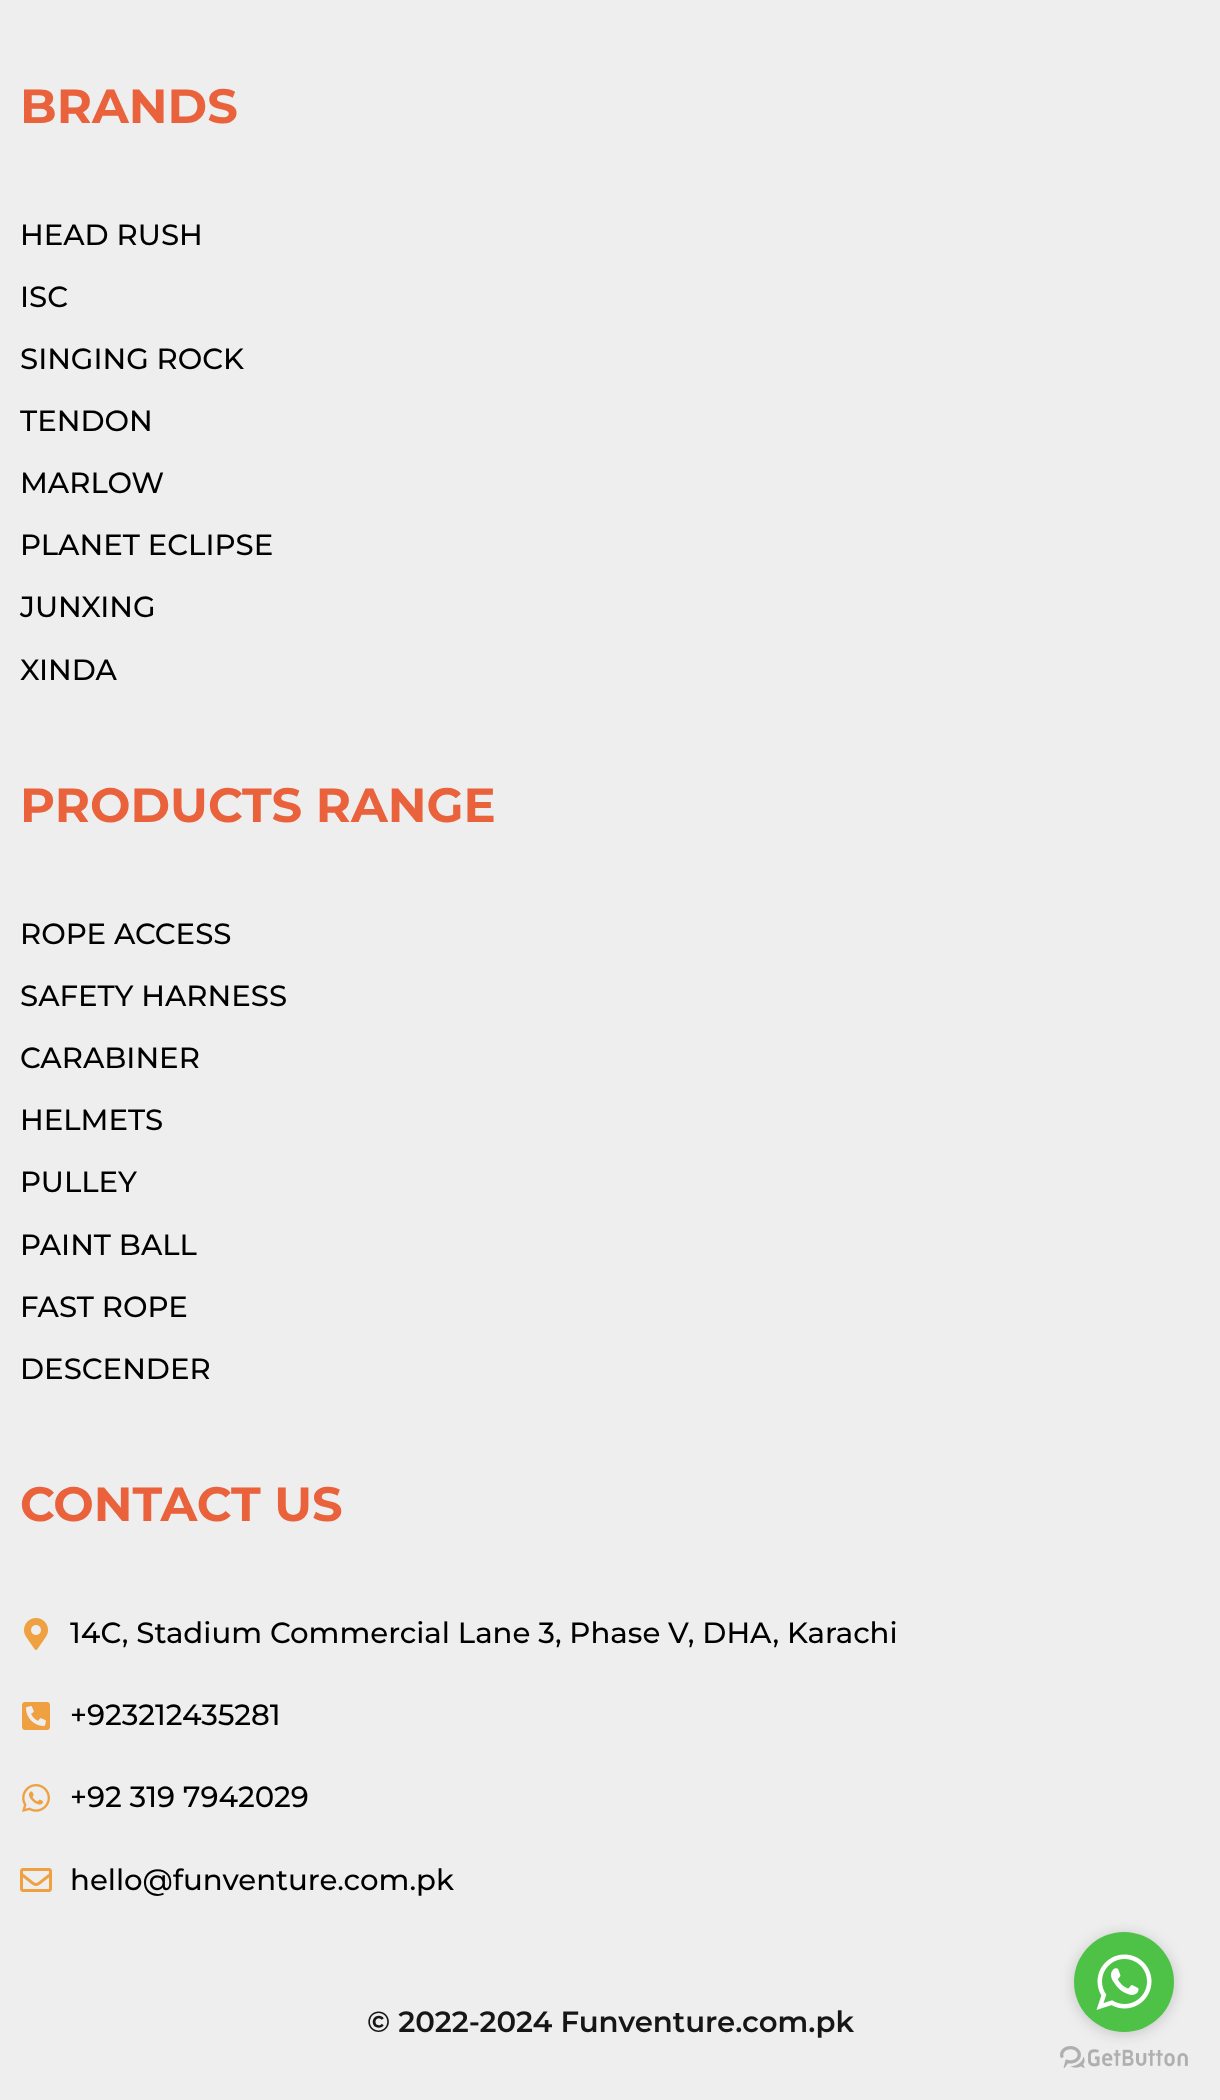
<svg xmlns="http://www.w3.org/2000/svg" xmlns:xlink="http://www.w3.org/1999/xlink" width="1220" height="2100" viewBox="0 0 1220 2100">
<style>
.cls-1{font:bold 48px Montserrat;fill:#e9623c}
.cls-2{font:500 29.2px Montserrat;fill:#000000}
.cls-3{font:600 29.2px Montserrat;fill:#161616}
</style>
<rect width="100%" height="100%" fill="#eeeeee"/>
<image xlink:href="image0.png" x="24" y="1618" width="24" height="32"/>
<image xlink:href="image1.png" x="22" y="1702" width="28" height="28"/>
<image xlink:href="image2.png" x="22" y="1784" width="28" height="28"/>
<image xlink:href="image3.png" x="20" y="1868" width="32" height="24"/>
<image xlink:href="image5.png" x="1060" y="2046" width="128" height="22"/>
<rect fill="#888888" fill-opacity="0.4" filter="blur(7px)" x="1074" y="1934" width="100" height="100" rx="50"/>
<circle fill="#4dc247" cx="1124" cy="1982" r="50"/>
<image xlink:href="image4.png" x="1096" y="1954" width="56" height="56"/>
<text class="cls-1" x="20" y="123">BRANDS</text>
<text class="cls-2" x="20" y="245">HEAD RUSH</text>
<text class="cls-2" x="20" y="307">ISC</text>
<text class="cls-2" x="20" y="369">SINGING ROCK</text>
<text class="cls-2" x="20" y="431">TENDON</text>
<text class="cls-2" x="20" y="493">MARLOW</text>
<text class="cls-2" x="20" y="555">PLANET ECLIPSE</text>
<text class="cls-2" x="20" y="617">JUNXING</text>
<text class="cls-2" x="20" y="680">XINDA</text>
<text class="cls-1" x="20" y="822">PRODUCTS RANGE</text>
<text class="cls-2" x="20" y="944">ROPE ACCESS</text>
<text class="cls-2" x="20" y="1006">SAFETY HARNESS</text>
<text class="cls-2" x="20" y="1068">CARABINER</text>
<text class="cls-2" x="20" y="1130">HELMETS</text>
<text class="cls-2" x="20" y="1192">PULLEY</text>
<text class="cls-2" x="20" y="1255">PAINT BALL</text>
<text class="cls-2" x="20" y="1317">FAST ROPE</text>
<text class="cls-2" x="20" y="1379">DESCENDER</text>
<text class="cls-1" x="20" y="1521">CONTACT US</text>
<text class="cls-2" x="70" y="1643">14C, Stadium Commercial Lane 3, Phase V, DHA, Karachi</text>
<text class="cls-2" x="70" y="1725">+923212435281</text>
<text class="cls-2" x="70" y="1807">+92 319 7942029</text>
<text class="cls-2" x="70" y="1890">hello@funventure.com.pk</text>
<text class="cls-3" x="367" y="2032">© 2022-2024 Funventure.com.pk</text>
</svg>
